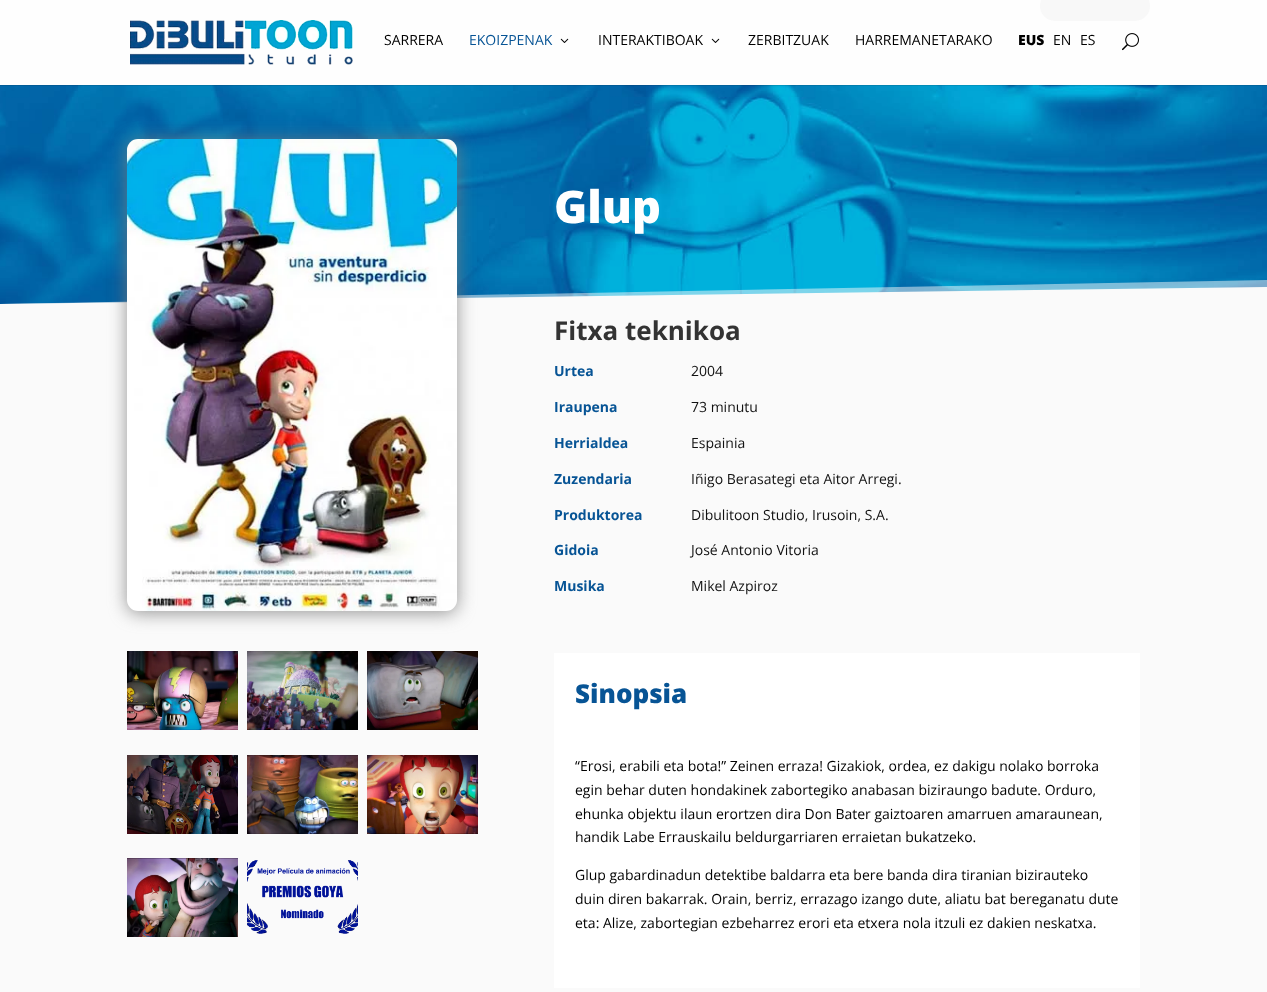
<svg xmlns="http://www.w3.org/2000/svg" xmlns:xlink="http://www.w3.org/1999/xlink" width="1267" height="992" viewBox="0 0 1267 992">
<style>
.cls-1{font:14px Open Sans;fill:#000000}
.cls-2{font:14px Open Sans;fill:#075495}
.cls-3{font:800 14px Open Sans;fill:#000000}
.cls-4{font:800 45px Open Sans;fill:#ffffff}
.cls-5{font:bold 26px Open Sans;fill:#333333}
.cls-6{font:bold 14px Open Sans;fill:#075495}
.cls-7{font:14px Open Sans;fill:#111111}
.cls-8{font:800 26px Open Sans;fill:#075495}
</style>
<rect width="100%" height="100%" fill="#fafafa"/>
<image xlink:href="image3.png" x="0" y="85" width="1267" height="219"/>
<rect fill="#000000" fill-opacity="0.1" x="0" y="85" width="1267" height="1"/>
<rect fill="#fefefe" x="0" y="0" width="1267" height="85"/>
<image xlink:href="image0.png" x="130" y="20" width="223" height="45"/>
<rect fill="#f8f8f8" x="1040" y="-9" width="110" height="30" rx="15"/>
<image xlink:href="image1.png" x="560" y="38" width="9" height="5"/>
<image xlink:href="image1.png" x="711" y="38" width="9" height="5"/>
<image xlink:href="image2.png" x="1122" y="33" width="17" height="18"/>
<path fill="#fafafa" fill-opacity="0.5" d="M1267 280V304H0Z"/>
<path fill="#fafafa" d="M1267 287V304H0Z"/>
<rect fill="#7c7c7c" fill-opacity="0.82" filter="blur(9px)" x="127" y="141" width="330" height="472" rx="11"/>
<image xlink:href="image4.png" x="127" y="139" width="330" height="472"/>
<image xlink:href="image5.png" x="127" y="651" width="111" height="79"/>
<image xlink:href="image6.png" x="247" y="651" width="111" height="79"/>
<image xlink:href="image7.png" x="367" y="651" width="111" height="79"/>
<image xlink:href="image8.png" x="127" y="755" width="111" height="79"/>
<image xlink:href="image9.png" x="247" y="755" width="111" height="79"/>
<image xlink:href="image10.png" x="367" y="755" width="111" height="79"/>
<image xlink:href="image11.png" x="127" y="858" width="111" height="79"/>
<image xlink:href="image12.png" x="247" y="860" width="111" height="74"/>
<rect fill="#ffffff" x="554" y="653" width="586" height="335"/>
<text class="cls-1" x="384" y="45">SARRERA</text>
<text class="cls-2" x="469" y="45">EKOIZPENAK</text>
<text class="cls-1" x="598" y="45">INTERAKTIBOAK</text>
<text class="cls-1" x="748" y="45">ZERBITZUAK</text>
<text class="cls-1" x="855" y="45">HARREMANETARAKO</text>
<text class="cls-3" x="1018" y="45">EUS</text>
<text class="cls-1" x="1053" y="45">EN</text>
<text class="cls-1" x="1080" y="45">ES</text>
<text class="cls-4" x="554" y="223">Glup</text>
<text class="cls-5" x="554" y="340">Fitxa teknikoa</text>
<text class="cls-6" x="554" y="376">Urtea</text>
<text class="cls-7" x="691" y="376">2004</text>
<text class="cls-6" x="554" y="412">Iraupena</text>
<text class="cls-7" x="691" y="412">73 minutu</text>
<text class="cls-6" x="554" y="448">Herrialdea</text>
<text class="cls-7" x="691" y="448">Espainia</text>
<text class="cls-6" x="554" y="484">Zuzendaria</text>
<text class="cls-7" x="691" y="484">Iñigo Berasategi eta Aitor Arregi.</text>
<text class="cls-6" x="554" y="520">Produktorea</text>
<text class="cls-7" x="691" y="520">Dibulitoon Studio, Irusoin, S.A.</text>
<text class="cls-6" x="554" y="555">Gidoia</text>
<text class="cls-7" x="691" y="555">José Antonio Vitoria</text>
<text class="cls-6" x="554" y="591">Musika</text>
<text class="cls-7" x="691" y="591">Mikel Azpiroz</text>
<text class="cls-8" x="575" y="703">Sinopsia</text>
<text class="cls-1"><tspan x="575" y="771">“Erosi, erabili eta bota!” Zeinen erraza! Gizakiok, ordea, ez dakigu nolako borroka</tspan><tspan x="575" y="795">egin behar duten hondakinek zabortegiko anabasan biziraungo badute. Orduro,</tspan><tspan x="575" y="819">ehunka objektu ilaun erortzen dira Don Bater gaiztoaren amarruen amaraunean,</tspan><tspan x="575" y="842">handik Labe Errauskailu beldurgarriaren erraietan bukatzeko.</tspan></text>
<text class="cls-1"><tspan x="575" y="880">Glup gabardinadun detektibe baldarra eta bere banda dira tiranian bizirauteko</tspan><tspan x="575" y="904">duin diren bakarrak. Orain, berriz, errazago izango dute, aliatu bat bereganatu dute</tspan><tspan x="575" y="928">eta: Alize, zabortegian ezbeharrez erori eta etxera nola itzuli ez dakien neskatxa.</tspan></text>
</svg>
